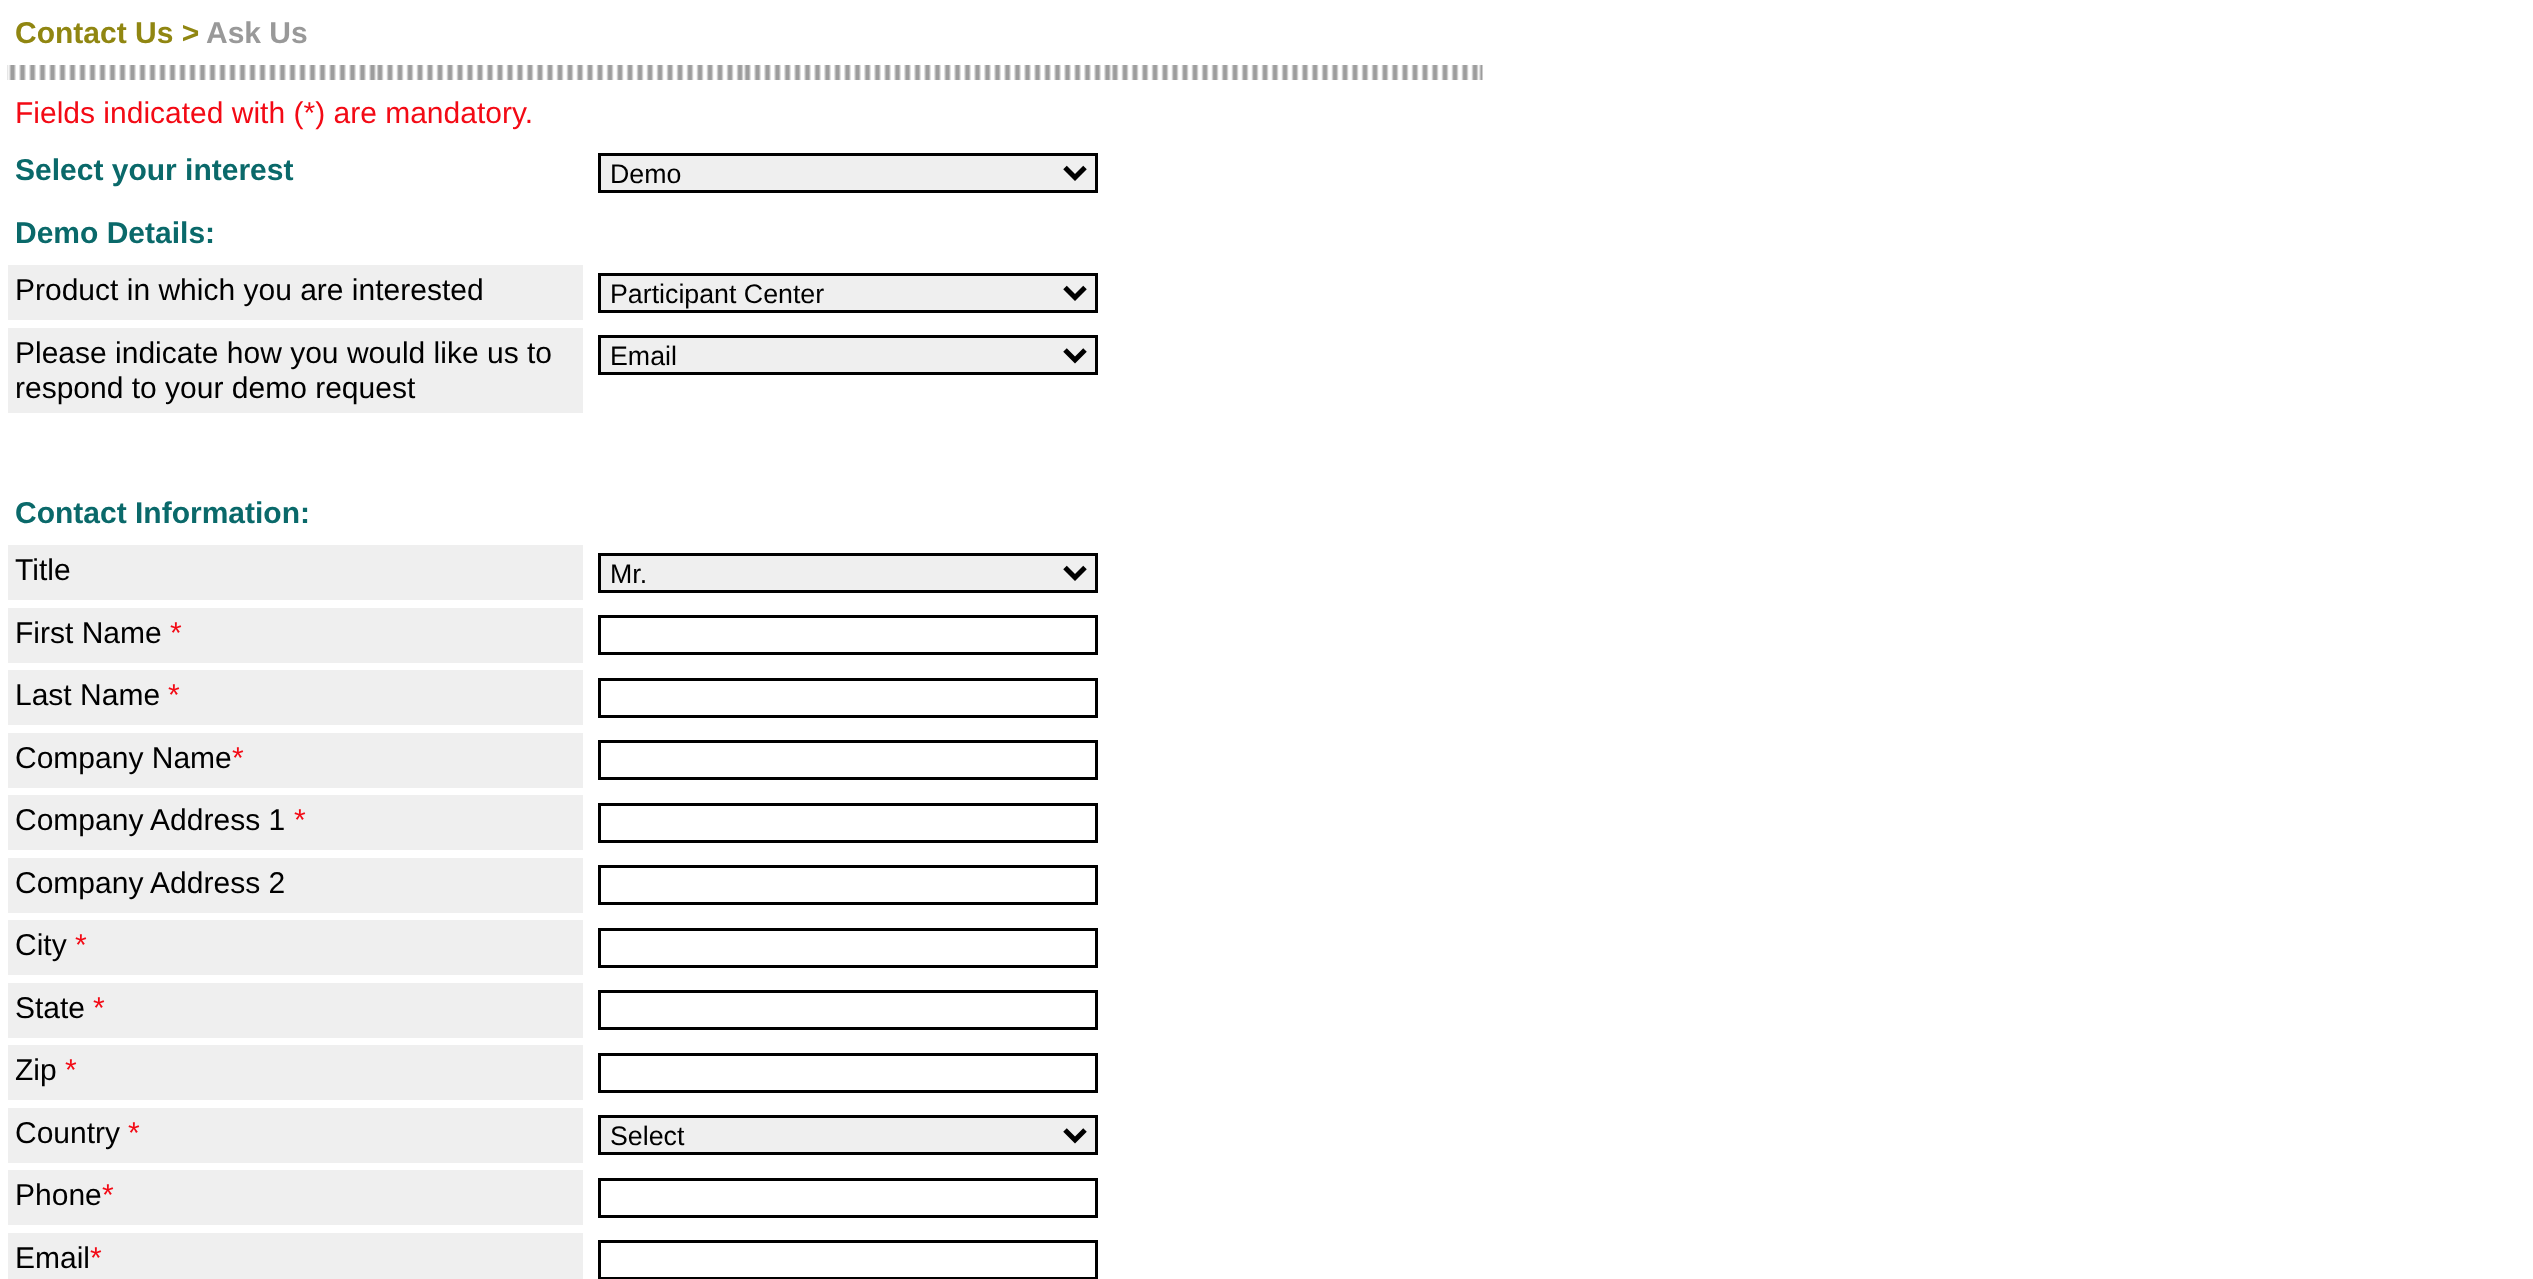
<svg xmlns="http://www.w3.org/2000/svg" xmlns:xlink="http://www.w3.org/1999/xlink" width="2533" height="1279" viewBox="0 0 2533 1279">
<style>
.cls-1{font:bold 30px Liberation Sans;fill:#908611}
.cls-2{font:bold 30px Liberation Sans;fill:#999999}
.cls-3{font:30px Liberation Sans;fill:#f30a15}
.cls-4{font:bold 30px Liberation Sans;fill:#0a696a}
.cls-5{font:26.75px Liberation Sans;fill:#000000}
.cls-6{font:30px Liberation Sans;fill:#000000}
</style>
<rect width="100%" height="100%" fill="#ffffff"/>
<image xlink:href="image0.png" x="7" y="65" width="1476" height="15"/>
<rect fill="#efefef" stroke="#000000" stroke-width="3" x="599.5" y="154.5" width="497" height="37"/>
<path fill="none" stroke="#000000" stroke-width="5" d="M1065 167.5L1075 177.5L1085 167.5"/>
<rect fill="#efefef" x="8" y="265" width="575" height="55"/>
<rect fill="#efefef" stroke="#000000" stroke-width="3" x="599.5" y="274.5" width="497" height="37"/>
<path fill="none" stroke="#000000" stroke-width="5" d="M1065 287.5L1075 297.5L1085 287.5"/>
<rect fill="#efefef" x="8" y="328" width="575" height="85"/>
<rect fill="#efefef" stroke="#000000" stroke-width="3" x="599.5" y="336.5" width="497" height="37"/>
<path fill="none" stroke="#000000" stroke-width="5" d="M1065 350L1075 360L1085 350"/>
<rect fill="#efefef" x="8" y="545" width="575" height="55"/>
<rect fill="#efefef" stroke="#000000" stroke-width="3" x="599.5" y="554.5" width="497" height="37"/>
<path fill="none" stroke="#000000" stroke-width="5" d="M1065 567.5L1075 577.5L1085 567.5"/>
<rect fill="#efefef" x="8" y="608" width="575" height="55"/>
<rect fill="none" stroke="#000000" stroke-width="3" x="599.5" y="616.5" width="497" height="37"/>
<rect fill="#efefef" x="8" y="670" width="575" height="55"/>
<rect fill="none" stroke="#000000" stroke-width="3" x="599.5" y="679.5" width="497" height="37"/>
<rect fill="#efefef" x="8" y="733" width="575" height="55"/>
<rect fill="none" stroke="#000000" stroke-width="3" x="599.5" y="741.5" width="497" height="37"/>
<rect fill="#efefef" x="8" y="795" width="575" height="55"/>
<rect fill="none" stroke="#000000" stroke-width="3" x="599.5" y="804.5" width="497" height="37"/>
<rect fill="#efefef" x="8" y="858" width="575" height="55"/>
<rect fill="none" stroke="#000000" stroke-width="3" x="599.5" y="866.5" width="497" height="37"/>
<rect fill="#efefef" x="8" y="920" width="575" height="55"/>
<rect fill="none" stroke="#000000" stroke-width="3" x="599.5" y="929.5" width="497" height="37"/>
<rect fill="#efefef" x="8" y="983" width="575" height="55"/>
<rect fill="none" stroke="#000000" stroke-width="3" x="599.5" y="991.5" width="497" height="37"/>
<rect fill="#efefef" x="8" y="1045" width="575" height="55"/>
<rect fill="none" stroke="#000000" stroke-width="3" x="599.5" y="1054.5" width="497" height="37"/>
<rect fill="#efefef" x="8" y="1108" width="575" height="55"/>
<rect fill="#efefef" stroke="#000000" stroke-width="3" x="599.5" y="1116.5" width="497" height="37"/>
<path fill="none" stroke="#000000" stroke-width="5" d="M1065 1130L1075 1140L1085 1130"/>
<rect fill="#efefef" x="8" y="1170" width="575" height="55"/>
<rect fill="none" stroke="#000000" stroke-width="3" x="599.5" y="1179.5" width="497" height="37"/>
<rect fill="#efefef" x="8" y="1233" width="575" height="46"/>
<rect fill="none" stroke="#000000" stroke-width="3" x="599.5" y="1241.5" width="497" height="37"/>
<text class="cls-1" x="15" y="43">Contact Us &gt;</text>
<text class="cls-2" x="206" y="43">Ask Us</text>
<text class="cls-3" x="15" y="123">Fields indicated with (*) are mandatory.</text>
<text class="cls-4" x="15" y="180">Select your interest</text>
<text class="cls-5" x="610" y="183">Demo</text>
<text class="cls-4" x="15" y="243">Demo Details:</text>
<text class="cls-6" x="15" y="300">Product in which you are interested</text>
<text class="cls-5" x="610" y="303">Participant Center</text>
<text class="cls-6"><tspan x="15" y="363">Please indicate how you would like us to</tspan><tspan x="15" y="398">respond to your demo request</tspan></text>
<text class="cls-5" x="610" y="365">Email</text>
<text class="cls-4" x="15" y="523">Contact Information:</text>
<text class="cls-6" x="15" y="580">Title</text>
<text class="cls-5" x="610" y="583">Mr.</text>
<text class="cls-6" x="15" y="643">First Name</text>
<text class="cls-3" x="170" y="643">*</text>
<text class="cls-6" x="15" y="705">Last Name</text>
<text class="cls-3" x="168" y="705">*</text>
<text class="cls-6" x="15" y="768">Company Name</text>
<text class="cls-3" x="232" y="768">*</text>
<text class="cls-6" x="15" y="830">Company Address 1</text>
<text class="cls-3" x="294" y="830">*</text>
<text class="cls-6" x="15" y="893">Company Address 2</text>
<text class="cls-6" x="15" y="955">City</text>
<text class="cls-3" x="75" y="955">*</text>
<text class="cls-6" x="15" y="1018">State</text>
<text class="cls-3" x="93" y="1018">*</text>
<text class="cls-6" x="15" y="1080">Zip</text>
<text class="cls-3" x="65" y="1080">*</text>
<text class="cls-6" x="15" y="1143">Country</text>
<text class="cls-3" x="128" y="1143">*</text>
<text class="cls-5" x="610" y="1145">Select</text>
<text class="cls-6" x="15" y="1205">Phone</text>
<text class="cls-3" x="102" y="1205">*</text>
<text class="cls-6" x="15" y="1268">Email</text>
<text class="cls-3" x="90" y="1268">*</text>
</svg>
